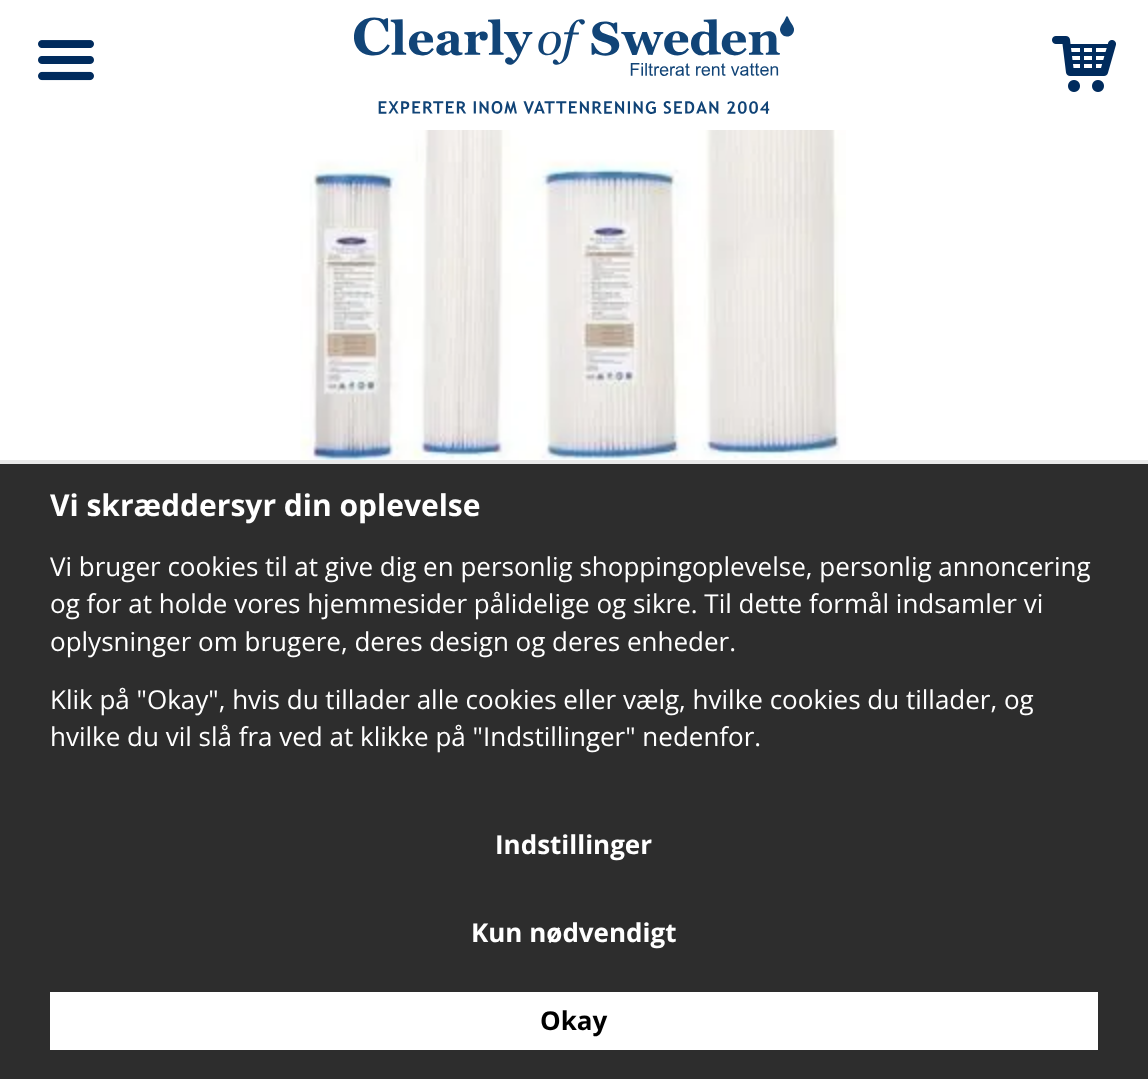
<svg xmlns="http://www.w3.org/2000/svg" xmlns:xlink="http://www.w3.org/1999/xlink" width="1148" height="1079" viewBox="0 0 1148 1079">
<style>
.cls-1{font:bold 30px Open Sans;fill:#ffffff}
.cls-2{font:26px Open Sans;fill:#ffffff}
.cls-3{font:bold 26px Open Sans;fill:#ffffff}
.cls-4{font:bold 26px Open Sans;fill:#000000}
</style>
<rect width="100%" height="100%" fill="#ffffff"/>
<image xlink:href="image0.png" x="38" y="40" width="56" height="41"/>
<image xlink:href="image1.png" x="354" y="16" width="440" height="98"/>
<image xlink:href="image2.png" x="1052" y="36" width="64" height="56"/>
<image xlink:href="image3.png" x="300" y="130" width="546" height="330"/>
<rect fill="#2d2d2d" x="0" y="464" width="1148" height="615"/>
<rect fill="#e9e9e9" x="0" y="460" width="1148" height="4"/>
<rect fill="#ffffff" x="50" y="992" width="1048" height="58"/>
<text class="cls-1" x="50" y="516">Vi skræddersyr din oplevelse</text>
<text class="cls-2"><tspan x="50" y="576">Vi bruger cookies til at give dig en personlig shoppingoplevelse, personlig annoncering</tspan><tspan x="50" y="613">og for at holde vores hjemmesider pålidelige og sikre. Til dette formål indsamler vi</tspan><tspan x="50" y="651">oplysninger om brugere, deres design og deres enheder.</tspan></text>
<text class="cls-2"><tspan x="50" y="709">Klik på "Okay", hvis du tillader alle cookies eller vælg, hvilke cookies du tillader, og</tspan><tspan x="50" y="746">hvilke du vil slå fra ved at klikke på "Indstillinger" nedenfor.</tspan></text>
<text class="cls-3" x="495" y="854">Indstillinger</text>
<text class="cls-3" x="471" y="942">Kun nødvendigt</text>
<text class="cls-4" x="540" y="1030">Okay</text>
</svg>
